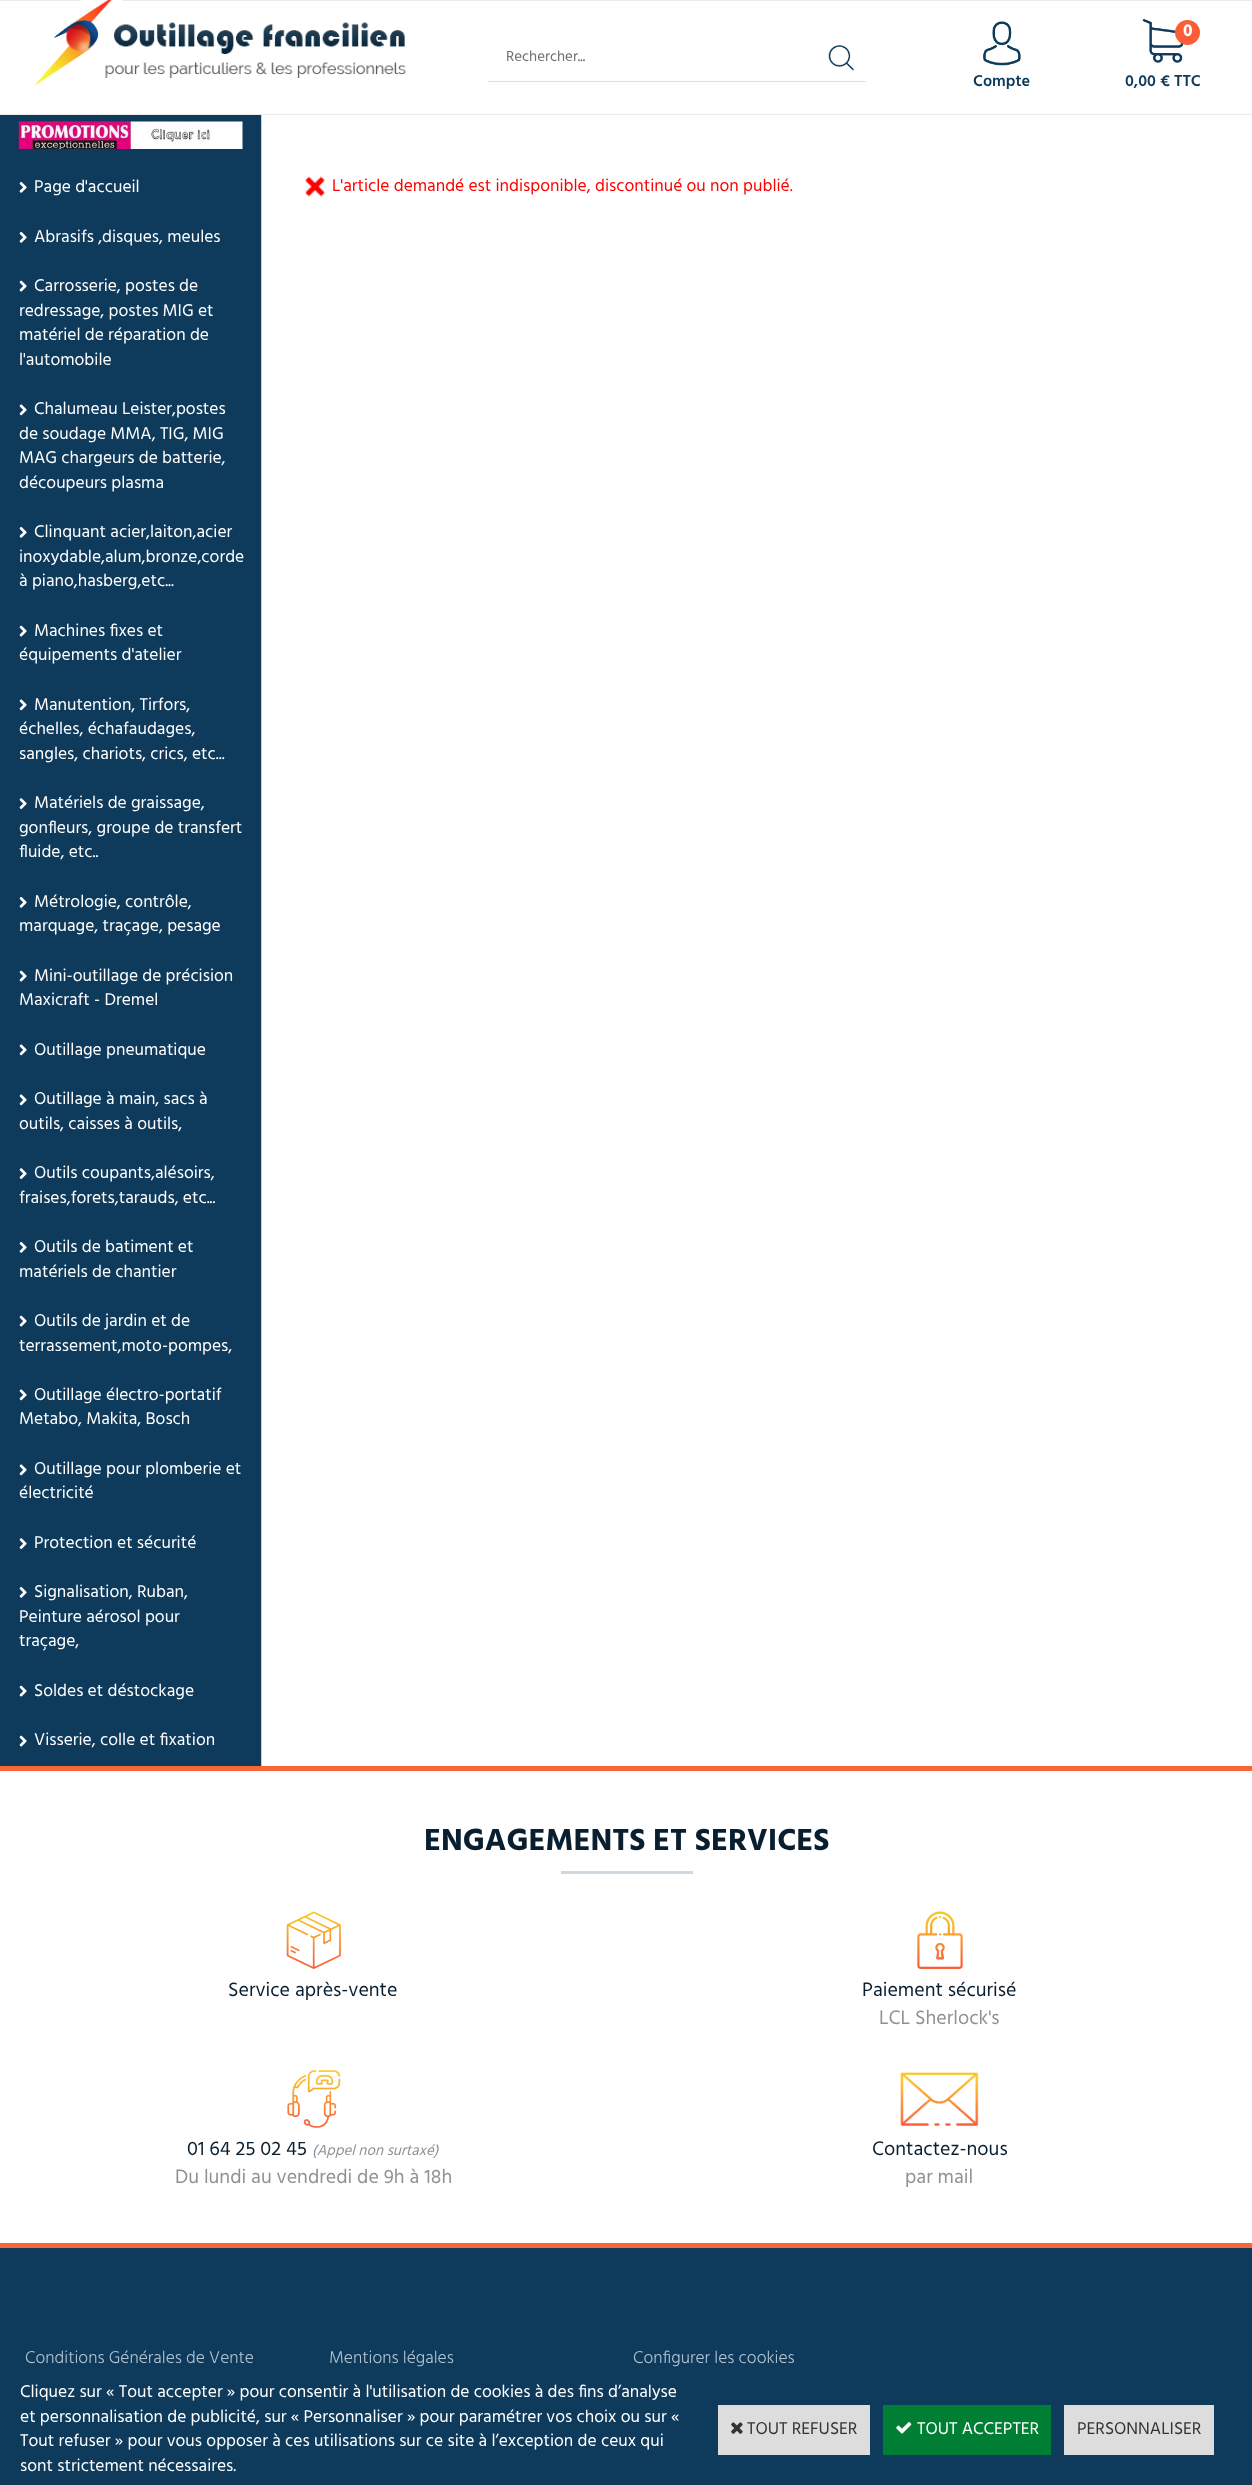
<svg xmlns="http://www.w3.org/2000/svg" xmlns:xlink="http://www.w3.org/1999/xlink" width="1252" height="2485" viewBox="0 0 1252 2485">
<style>
.cls-1{font:15px Hind;fill:#6f6f6f}
.cls-2{font:600 16.25px Hind;fill:#0e3a5b}
.cls-3{font:bold 17.5px Hind;fill:#ffffff}
.cls-4{font:17.5px Hind;fill:#ffffff}
.cls-5{font:17.5px Hind;fill:#ff0000}
.cls-6{font:bold 31.25px Hind;fill:#091f2f}
.cls-7{font:20px Hind;fill:#091f2f}
.cls-8{font:20px Hind;fill:#8d9296}
.cls-9{font:italic 15px Hind;fill:#8d9296}
.cls-10{font:300 17.5px Hind;fill:#b2c4d2}
.cls-11{font:17.5px Hind;fill:#333333}
</style>
<rect width="100%" height="100%" fill="#ffffff"/>
<rect fill="#ebebeb" x="0" y="0" width="1252" height="1"/>
<rect fill="#ebebeb" x="0" y="114" width="1252" height="1"/>
<image xlink:href="image0.png" x="35" y="0" width="371" height="85"/>
<rect fill="#e0e0e0" x="488" y="81" width="378" height="1"/>
<image xlink:href="image1.png" x="828" y="45" width="26" height="26"/>
<image xlink:href="image2.png" x="983" y="21" width="38" height="45"/>
<image xlink:href="image3.png" x="1142" y="19" width="42" height="44"/>
<circle fill="#fa5d38" cx="1187.5" cy="32.5" r="12.5"/>
<rect fill="#0e3a5b" x="0" y="115" width="261" height="1651"/>
<rect fill="#d0d0d0" x="261" y="115" width="1" height="1651"/>
<image xlink:href="image4.png" x="18" y="121" width="225" height="28"/>
<image xlink:href="image5.png" x="19" y="181" width="8" height="12"/>
<image xlink:href="image5.png" x="19" y="231" width="8" height="12"/>
<image xlink:href="image6.png" x="19" y="280" width="8" height="12"/>
<image xlink:href="image7.png" x="19" y="404" width="8" height="12"/>
<image xlink:href="image5.png" x="19" y="526" width="8" height="12"/>
<image xlink:href="image6.png" x="19" y="625" width="8" height="12"/>
<image xlink:href="image7.png" x="19" y="699" width="8" height="12"/>
<image xlink:href="image8.png" x="19" y="798" width="8" height="11"/>
<image xlink:href="image5.png" x="19" y="896" width="8" height="12"/>
<image xlink:href="image6.png" x="19" y="970" width="8" height="12"/>
<image xlink:href="image7.png" x="19" y="1044" width="8" height="12"/>
<image xlink:href="image7.png" x="19" y="1094" width="8" height="12"/>
<image xlink:href="image8.png" x="19" y="1168" width="8" height="11"/>
<image xlink:href="image5.png" x="19" y="1241" width="8" height="12"/>
<image xlink:href="image6.png" x="19" y="1315" width="8" height="12"/>
<image xlink:href="image7.png" x="19" y="1389" width="8" height="12"/>
<image xlink:href="image7.png" x="19" y="1464" width="8" height="12"/>
<image xlink:href="image8.png" x="19" y="1538" width="8" height="11"/>
<image xlink:href="image5.png" x="19" y="1586" width="8" height="12"/>
<image xlink:href="image6.png" x="19" y="1685" width="8" height="12"/>
<image xlink:href="image6.png" x="19" y="1735" width="8" height="12"/>
<image xlink:href="image9.png" x="305" y="176" width="21" height="21"/>
<rect fill="#0e3a5b" x="0" y="2248" width="1252" height="237"/>
<rect fill="#fa6537" x="0" y="1766" width="1252" height="5"/>
<rect fill="#fa6537" x="0" y="2243" width="1252" height="5"/>
<rect fill="#cfd8de" x="561" y="1871" width="132" height="3"/>
<image xlink:href="image10.png" x="286" y="1911" width="56" height="58"/>
<image xlink:href="image11.png" x="917" y="1911" width="46" height="58"/>
<image xlink:href="image12.png" x="287" y="2070" width="54" height="58"/>
<image xlink:href="image13.png" x="900" y="2072" width="79" height="54"/>
<rect fill="#dddddd" x="718" y="2405" width="152" height="50"/>
<image xlink:href="image14.png" x="731" y="2422" width="12" height="12"/>
<rect fill="#007e33" x="883" y="2405" width="168" height="50"/>
<image xlink:href="image15.png" x="896" y="2422" width="16" height="12"/>
<rect fill="#dddddd" x="1064" y="2405" width="150" height="50"/>
<text class="cls-1" x="506" y="61">Rechercher...</text>
<text class="cls-2" x="973" y="86">Compte</text>
<text class="cls-3" x="1183" y="36">0</text>
<text class="cls-2" x="1125" y="86">0,00 € TTC</text>
<text class="cls-4" x="34" y="192">Page d'accueil</text>
<text class="cls-4" x="34" y="242">Abrasifs ,disques, meules</text>
<text class="cls-4" x="34" y="291">Carrosserie, postes de</text>
<text class="cls-4"><tspan x="19" y="316">redressage, postes MIG et</tspan><tspan x="19" y="340">matériel de réparation de</tspan><tspan x="19" y="365">l'automobile</tspan></text>
<text class="cls-4" x="34" y="414">Chalumeau Leister,postes</text>
<text class="cls-4"><tspan x="19" y="439">de soudage MMA, TIG, MIG</tspan><tspan x="19" y="463">MAG chargeurs de batterie,</tspan><tspan x="19" y="488">découpeurs plasma</tspan></text>
<text class="cls-4" x="34" y="537">Clinquant acier,laiton,acier</text>
<text class="cls-4"><tspan x="19" y="562">inoxydable,alum,bronze,corde</tspan><tspan x="19" y="586">à piano,hasberg,etc...</tspan></text>
<text class="cls-4" x="34" y="636">Machines fixes et</text>
<text class="cls-4" x="19" y="660">équipements d'atelier</text>
<text class="cls-4" x="34" y="710">Manutention, Tirfors,</text>
<text class="cls-4"><tspan x="19" y="734">échelles, échafaudages,</tspan><tspan x="19" y="759">sangles, chariots, crics, etc...</tspan></text>
<text class="cls-4" x="34" y="808">Matériels de graissage,</text>
<text class="cls-4"><tspan x="19" y="833">gonfleurs, groupe de transfert</tspan><tspan x="19" y="857">fluide, etc..</tspan></text>
<text class="cls-4" x="34" y="907">Métrologie, contrôle,</text>
<text class="cls-4" x="19" y="931">marquage, traçage, pesage</text>
<text class="cls-4" x="34" y="981">Mini-outillage de précision</text>
<text class="cls-4" x="19" y="1005">Maxicraft - Dremel</text>
<text class="cls-4" x="34" y="1055">Outillage pneumatique</text>
<text class="cls-4" x="34" y="1104">Outillage à main, sacs à</text>
<text class="cls-4" x="19" y="1129">outils, caisses à outils,</text>
<text class="cls-4" x="34" y="1178">Outils coupants,alésoirs,</text>
<text class="cls-4" x="19" y="1203">fraises,forets,tarauds, etc...</text>
<text class="cls-4" x="34" y="1252">Outils de batiment et</text>
<text class="cls-4" x="19" y="1277">matériels de chantier</text>
<text class="cls-4" x="34" y="1326">Outils de jardin et de</text>
<text class="cls-4" x="19" y="1351">terrassement,moto-pompes,</text>
<text class="cls-4" x="34" y="1400">Outillage électro-portatif</text>
<text class="cls-4" x="19" y="1424">Metabo, Makita, Bosch</text>
<text class="cls-4" x="34" y="1474">Outillage pour plomberie et</text>
<text class="cls-4" x="19" y="1498">électricité</text>
<text class="cls-4" x="34" y="1548">Protection et sécurité</text>
<text class="cls-4" x="34" y="1597">Signalisation, Ruban,</text>
<text class="cls-4"><tspan x="19" y="1622">Peinture aérosol pour</tspan><tspan x="19" y="1646">traçage,</tspan></text>
<text class="cls-4" x="34" y="1696">Soldes et déstockage</text>
<text class="cls-4" x="34" y="1745">Visserie, colle et fixation</text>
<text class="cls-5" x="332" y="191">L'article demandé est indisponible, discontinué ou non publié.</text>
<text class="cls-6" x="424" y="1850">ENGAGEMENTS ET SERVICES</text>
<text class="cls-7" x="228" y="1996">Service après-vente</text>
<text class="cls-7" x="862" y="1996">Paiement sécurisé</text>
<text class="cls-8" x="879" y="2024">LCL Sherlock's</text>
<text class="cls-7" x="187" y="2155">01 64 25 02 45</text>
<text class="cls-9" x="312" y="2155">(Appel non surtaxé)</text>
<text class="cls-8" x="175" y="2183">Du lundi au vendredi de 9h à 18h</text>
<text class="cls-7" x="872" y="2155">Contactez-nous</text>
<text class="cls-8" x="905" y="2183">par mail</text>
<text class="cls-10" x="25" y="2363">Conditions Générales de Vente</text>
<text class="cls-10" x="329" y="2363">Mentions légales</text>
<text class="cls-10" x="633" y="2363">Configurer les cookies</text>
<text class="cls-4"><tspan x="20" y="2397">Cliquez sur « Tout accepter » pour consentir à l'utilisation de cookies à des fins d’analyse</tspan><tspan x="20" y="2422">et personnalisation de publicité, sur « Personnaliser » pour paramétrer vos choix ou sur «</tspan><tspan x="20" y="2446">Tout refuser » pour vous opposer à ces utilisations sur ce site à l’exception de ceux qui</tspan><tspan x="20" y="2471">sont strictement nécessaires.</tspan></text>
<text class="cls-11" x="747" y="2434">TOUT REFUSER</text>
<text class="cls-4" x="917" y="2434">TOUT ACCEPTER</text>
<text class="cls-11" x="1077" y="2434">PERSONNALISER</text>
</svg>
